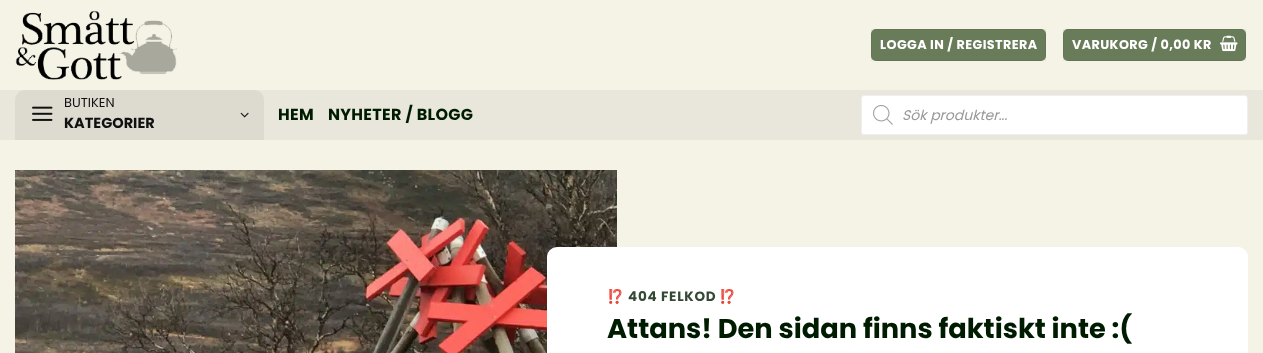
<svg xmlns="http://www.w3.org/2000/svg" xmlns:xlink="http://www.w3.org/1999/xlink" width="1263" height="353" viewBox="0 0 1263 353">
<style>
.cls-1{font:bold 12.75px Poppins;letter-spacing:0.4px;fill:#ffffff}
.cls-2{font:13px Poppins;fill:#111111}
.cls-3{font:bold 14.5px Poppins;fill:#111111}
.cls-4{font:bold 16px Poppins;letter-spacing:0.3px;fill:#001c00}
.cls-5{font:italic 14px Poppins;fill:#999999}
.cls-6{font:bold 13.5px Noto Color Emoji;letter-spacing:0.75px;fill:#334933}
.cls-7{font:bold 13.5px Poppins;letter-spacing:0.75px;fill:#334933}
.cls-8{font:bold 27.25px Poppins;fill:#001c00}
</style>
<rect width="100%" height="100%" fill="#f5f3e6"/>
<image xlink:href="image0.png" x="15" y="10" width="162" height="70"/>
<rect fill="#697c5a" x="871" y="29" width="175" height="32" rx="5"/>
<rect fill="none" stroke="#000000" stroke-opacity="0.05" x="871.5" y="29.5" width="174" height="31"/>
<rect fill="#697c5a" x="1063" y="29" width="183" height="32" rx="5"/>
<rect fill="none" stroke="#000000" stroke-opacity="0.05" x="1063.5" y="29.5" width="182" height="31"/>
<image xlink:href="image1.png" x="1220" y="35" width="18" height="17"/>
<rect fill="#e9e7db" x="0" y="90" width="1263" height="50"/>
<path fill="#dddbd0" d="M25 90H254C259.5 90 264 94.5 264 100V140H15V100C15 94.5 19.5 90 25 90Z"/>
<image xlink:href="image2.png" x="32" y="106" width="21" height="15"/>
<image xlink:href="image3.png" x="240" y="112" width="9" height="6"/>
<rect fill="#ffffff" stroke="#efefef" x="861.5" y="95.5" width="386" height="39" rx="2.5"/>
<image xlink:href="image4.png" x="873" y="105" width="20" height="20"/>
<image xlink:href="image5.png" x="15" y="170" width="602" height="183"/>
<rect fill="#ffffff" x="547" y="247" width="701" height="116" rx="10"/>
<text class="cls-1" x="880" y="49">LOGGA IN / REGISTRERA</text>
<text class="cls-1" x="1072" y="49">VARUKORG / 0,00 KR</text>
<text class="cls-2" x="64" y="107">BUTIKEN</text>
<text class="cls-3" x="64" y="128">KATEGORIER</text>
<text class="cls-4" x="278" y="120">HEM</text>
<text class="cls-4" x="328" y="120">NYHETER / BLOGG</text>
<text class="cls-5" x="902" y="120">Sök produkter...</text>
<text class="cls-6" x="607" y="301">⁉️</text>
<text class="cls-7" x="628" y="301">404 FELKOD</text>
<text class="cls-6" x="719" y="301">⁉️</text>
<text class="cls-8" x="607" y="338">Attans! Den sidan finns faktiskt inte :(</text>
</svg>
